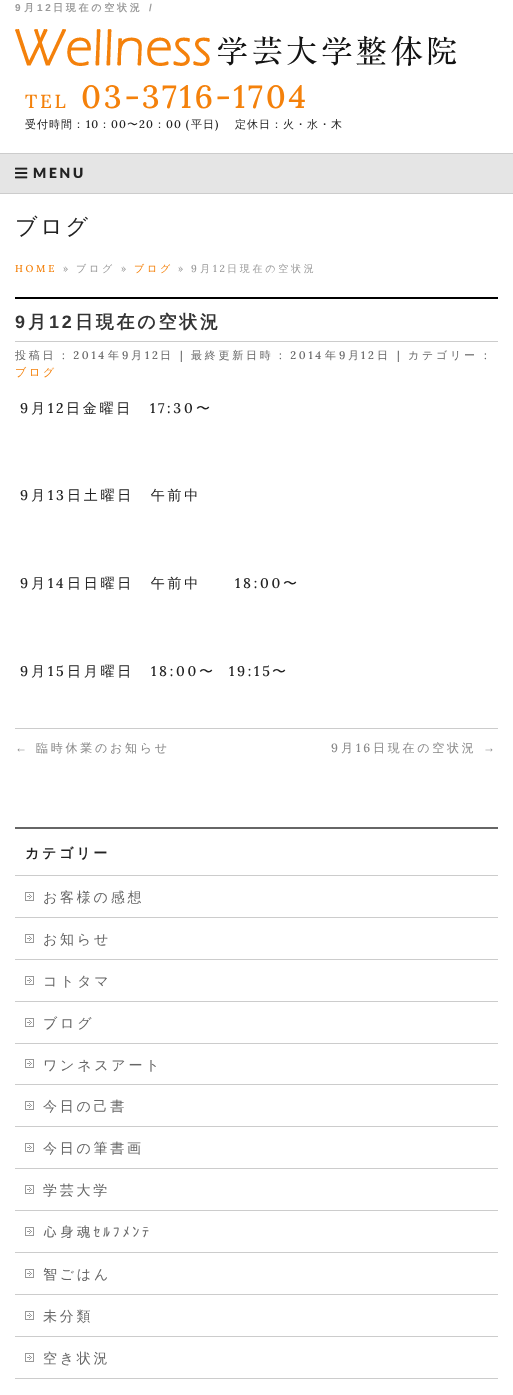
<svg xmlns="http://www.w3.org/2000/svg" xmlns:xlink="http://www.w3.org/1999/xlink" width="513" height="1395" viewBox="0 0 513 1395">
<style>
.cls-1{font:bold 10px Liberation Sans;letter-spacing:2.75px;fill:#999999}
.cls-2{font:bold 10px WenQuanYi Zen Hei;letter-spacing:2.75px;fill:#999999}
.cls-3{font:500 19px Lora;letter-spacing:2.75px;fill:#f4810b}
.cls-4{font:500 32px Lora;letter-spacing:2.75px;fill:#f4810b}
.cls-5{font:500 11px WenQuanYi Zen Hei;letter-spacing:1px;fill:#222222}
.cls-6{font:500 11px Lora;letter-spacing:1px;fill:#222222}
.cls-7{font:900 14px Lato;letter-spacing:2.75px;fill:#222222}
.cls-8{font:500 22px WenQuanYi Zen Hei;letter-spacing:2.75px;fill:#222222}
.cls-9{font:500 10px Lora;letter-spacing:2.75px;fill:#f4810b}
.cls-10{font:500 10px Lora;letter-spacing:2.75px;fill:#999999}
.cls-11{font:500 10px WenQuanYi Zen Hei;letter-spacing:2.75px;fill:#999999}
.cls-12{font:500 10px WenQuanYi Zen Hei;letter-spacing:2.75px;fill:#f4810b}
.cls-13{font:bold 18px Liberation Sans;letter-spacing:2.75px;fill:#333333}
.cls-14{font:bold 18px WenQuanYi Zen Hei;letter-spacing:2.75px;fill:#333333}
.cls-15{font:500 11px WenQuanYi Zen Hei;letter-spacing:2.75px;fill:#666666}
.cls-16{font:500 11px Lora;letter-spacing:2.75px;fill:#666666}
.cls-17{font:500 11px WenQuanYi Zen Hei;letter-spacing:2.75px;fill:#f4810b}
.cls-18{font:500 14px Lora;letter-spacing:2.75px;fill:#222222}
.cls-19{font:500 14px WenQuanYi Zen Hei;letter-spacing:2.75px;fill:#222222}
.cls-20{font:12px Liberation Serif;letter-spacing:2.75px;fill:#888888}
.cls-21{font:500 12px WenQuanYi Zen Hei;letter-spacing:2.75px;fill:#888888}
.cls-22{font:500 12px Lora;letter-spacing:2.75px;fill:#888888}
.cls-23{font:bold 14px WenQuanYi Zen Hei;letter-spacing:2.75px;fill:#222222}
.cls-24{font:500 14px WenQuanYi Zen Hei;letter-spacing:2.75px;fill:#666666}
.cls-25{font:14px IPAPGothic;letter-spacing:2.75px;fill:#666666}
</style>
<rect width="100%" height="100%" fill="#ffffff"/>
<image xlink:href="image0.png" x="15" y="29" width="442" height="37"/>
<rect fill="#cccccc" x="0" y="153" width="513" height="1"/>
<rect fill="#cccccc" x="0" y="193" width="513" height="1"/>
<rect fill="#e5e5e5" x="0" y="154" width="513" height="39"/>
<image xlink:href="image1.png" x="15" y="167" width="13" height="12"/>
<rect fill="#000000" x="15" y="297" width="483" height="2"/>
<rect fill="#cccccc" x="15" y="341" width="483" height="1"/>
<rect fill="#cccccc" x="15" y="728" width="483" height="1"/>
<rect fill="#666666" x="15" y="827" width="483" height="2"/>
<rect fill="#cccccc" x="15" y="875" width="483" height="1"/>
<rect fill="#cccccc" x="15" y="917" width="483" height="1"/>
<image xlink:href="image2.png" x="25" y="892" width="9" height="9"/>
<rect fill="#cccccc" x="15" y="959" width="483" height="1"/>
<image xlink:href="image2.png" x="25" y="934" width="9" height="9"/>
<rect fill="#cccccc" x="15" y="1001" width="483" height="1"/>
<image xlink:href="image2.png" x="25" y="976" width="9" height="9"/>
<rect fill="#cccccc" x="15" y="1043" width="483" height="1"/>
<image xlink:href="image2.png" x="25" y="1018" width="9" height="9"/>
<rect fill="#cccccc" x="15" y="1084" width="483" height="1"/>
<image xlink:href="image2.png" x="25" y="1059" width="9" height="9"/>
<rect fill="#cccccc" x="15" y="1126" width="483" height="1"/>
<image xlink:href="image2.png" x="25" y="1101" width="9" height="9"/>
<rect fill="#cccccc" x="15" y="1168" width="483" height="1"/>
<image xlink:href="image2.png" x="25" y="1143" width="9" height="9"/>
<rect fill="#cccccc" x="15" y="1210" width="483" height="1"/>
<image xlink:href="image2.png" x="25" y="1185" width="9" height="9"/>
<rect fill="#cccccc" x="15" y="1252" width="483" height="1"/>
<image xlink:href="image2.png" x="25" y="1227" width="9" height="9"/>
<rect fill="#cccccc" x="15" y="1294" width="483" height="1"/>
<image xlink:href="image2.png" x="25" y="1269" width="9" height="9"/>
<rect fill="#cccccc" x="15" y="1336" width="483" height="1"/>
<image xlink:href="image2.png" x="25" y="1311" width="9" height="9"/>
<rect fill="#cccccc" x="15" y="1378" width="483" height="1"/>
<image xlink:href="image2.png" x="25" y="1353" width="9" height="9"/>
<text class="cls-1" x="15" y="11">9</text>
<text class="cls-2" x="24" y="11">月</text>
<text class="cls-1" x="37" y="11">12</text>
<text class="cls-2" x="53" y="11">日現在の空状況</text>
<text class="cls-1" x="149" y="11">/</text>
<text class="cls-3" x="25" y="108">TEL</text>
<text class="cls-4" x="81" y="108">03-3716-1704</text>
<text class="cls-5" x="25" y="128">受付時間：</text>
<text class="cls-6" x="86" y="128">10</text>
<text class="cls-5" x="99" y="128">：</text>
<text class="cls-6" x="111" y="128">00</text>
<text class="cls-5" x="127" y="128">〜</text>
<text class="cls-6" x="139" y="128">20</text>
<text class="cls-5" x="154" y="128">：</text>
<text class="cls-6" x="166" y="128">00 (</text>
<text class="cls-5" x="191" y="128">平日</text>
<text class="cls-6" x="215" y="128">)</text>
<text class="cls-5" x="235" y="128">定休日：火・水・木</text>
<text class="cls-7" x="33" y="178">MENU</text>
<text class="cls-8" x="15" y="234">ブログ</text>
<text class="cls-9" x="15" y="272">HOME</text>
<text class="cls-10" x="63" y="272">»</text>
<text class="cls-11" x="76" y="272">ブログ</text>
<text class="cls-10" x="121" y="272">»</text>
<text class="cls-12" x="134" y="272">ブログ</text>
<text class="cls-10" x="178" y="272">»</text>
<text class="cls-10" x="191" y="272">9</text>
<text class="cls-11" x="200" y="272">月</text>
<text class="cls-10" x="213" y="272">12</text>
<text class="cls-11" x="227" y="272">日現在の空状況</text>
<text class="cls-13" x="15" y="328">9</text>
<text class="cls-14" x="28" y="328">月</text>
<text class="cls-13" x="49" y="328">12</text>
<text class="cls-14" x="75" y="328">日現在の空状況</text>
<text class="cls-15" x="15" y="359">投稿日</text>
<text class="cls-16" x="62" y="359">: 2014</text>
<text class="cls-15" x="108" y="359">年</text>
<text class="cls-16" x="122" y="359">9</text>
<text class="cls-15" x="131" y="359">月</text>
<text class="cls-16" x="145" y="359">12</text>
<text class="cls-15" x="160" y="359">日</text>
<text class="cls-16" x="180" y="359">|</text>
<text class="cls-15" x="191" y="359">最終更新日時</text>
<text class="cls-16" x="279" y="359">: 2014</text>
<text class="cls-15" x="325" y="359">年</text>
<text class="cls-16" x="339" y="359">9</text>
<text class="cls-15" x="348" y="359">月</text>
<text class="cls-16" x="361" y="359">12</text>
<text class="cls-15" x="377" y="359">日</text>
<text class="cls-16" x="397" y="359">|</text>
<text class="cls-15" x="408" y="359">カテゴリー</text>
<text class="cls-16" x="484" y="359">:</text>
<text class="cls-17" x="15" y="376">ブログ</text>
<text class="cls-18" x="20" y="413">9</text>
<text class="cls-19" x="31" y="413">月</text>
<text class="cls-18" x="48" y="413">12</text>
<text class="cls-19" x="66" y="413">日金曜日</text>
<text class="cls-18" x="150" y="413">17:30</text>
<text class="cls-19" x="196" y="413">〜</text>
<text class="cls-18" x="20" y="500">9</text>
<text class="cls-19" x="31" y="500">月</text>
<text class="cls-18" x="48" y="500">13</text>
<text class="cls-19" x="67" y="500">日土曜日　午前中</text>
<text class="cls-18" x="20" y="588">9</text>
<text class="cls-19" x="31" y="588">月</text>
<text class="cls-18" x="48" y="588">14</text>
<text class="cls-19" x="67" y="588">日日曜日　午前中</text>
<text class="cls-18" x="235" y="588">18:00</text>
<text class="cls-19" x="283" y="588">〜</text>
<text class="cls-18" x="20" y="676">9</text>
<text class="cls-19" x="31" y="676">月</text>
<text class="cls-18" x="48" y="676">15</text>
<text class="cls-19" x="67" y="676">日月曜日</text>
<text class="cls-18" x="151" y="676">18:00</text>
<text class="cls-19" x="199" y="676">〜</text>
<text class="cls-18" x="229" y="676">19:15</text>
<text class="cls-19" x="272" y="676">〜</text>
<text class="cls-20" x="15" y="752">←</text>
<text class="cls-21" x="36" y="752">臨時休業のお知らせ</text>
<text class="cls-22" x="331" y="752">9</text>
<text class="cls-21" x="341" y="752">月</text>
<text class="cls-22" x="356" y="752">16</text>
<text class="cls-21" x="373" y="752">日現在の空状況</text>
<text class="cls-20" x="483" y="752">→</text>
<text class="cls-23" x="25" y="858">カテゴリー</text>
<text class="cls-24" x="43" y="902">お客様の感想</text>
<text class="cls-24" x="43" y="944">お知らせ</text>
<text class="cls-24" x="43" y="986">コトタマ</text>
<text class="cls-24" x="43" y="1028">ブログ</text>
<text class="cls-24" x="43" y="1070">ワンネスアート</text>
<text class="cls-24" x="43" y="1111">今日の己書</text>
<text class="cls-24" x="43" y="1153">今日の筆書画</text>
<text class="cls-24" x="43" y="1195">学芸大学</text>
<text class="cls-25" x="43" y="1237">心身魂ｾﾙﾌﾒﾝﾃ</text>
<text class="cls-24" x="43" y="1279">智ごはん</text>
<text class="cls-24" x="43" y="1321">未分類</text>
<text class="cls-24" x="43" y="1363">空き状況</text>
</svg>
